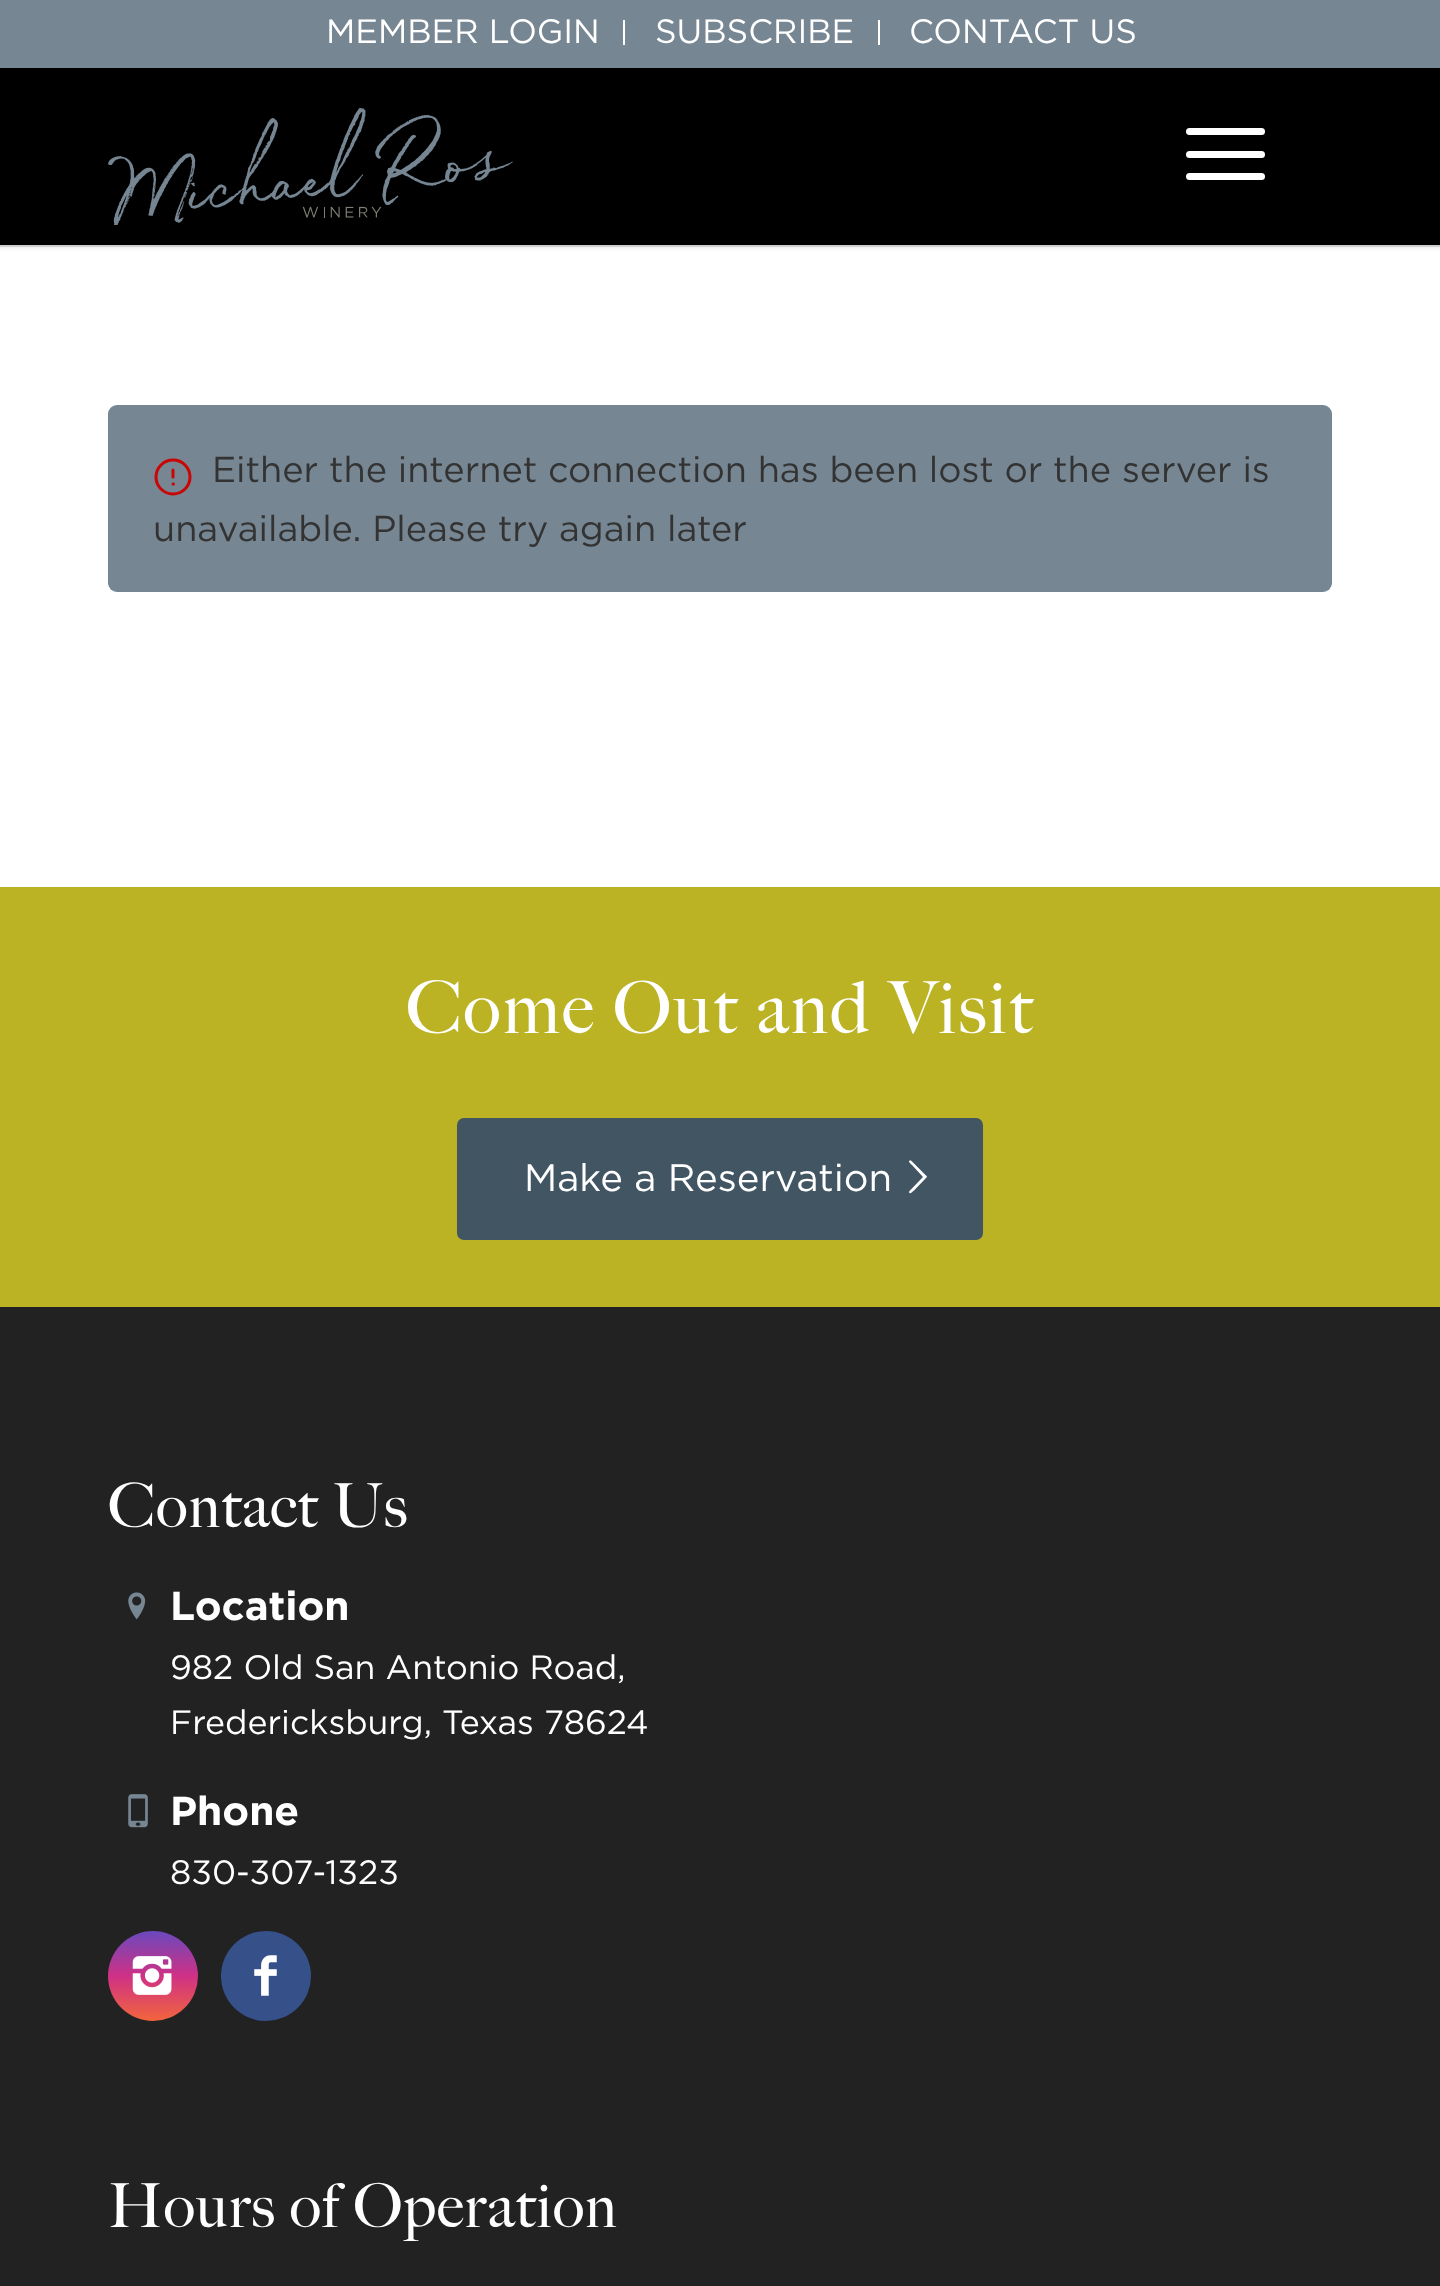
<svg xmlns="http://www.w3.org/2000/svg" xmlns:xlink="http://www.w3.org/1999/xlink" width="1440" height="2286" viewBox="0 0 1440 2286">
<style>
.cls-1{font:33.75px Gotham;fill:#ffffff}
.cls-2{font:36px Gotham;fill:#333333}
.cls-3{font:72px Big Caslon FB;letter-spacing:2.25px;fill:#ffffff}
.cls-4{font:38.25px Gotham;fill:#ffffff}
.cls-5{font:500 60.75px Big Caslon;letter-spacing:1.1px;fill:#ffffff}
.cls-6{font:bold 40.5px Gotham;fill:#ffffff}
</style>
<defs>
<linearGradient id="g1" gradientUnits="userSpaceOnUse" x1="153" y1="1931" x2="153" y2="2021"><stop offset="0" stop-color="#6b48bd"/><stop offset="0.5" stop-color="#cf3185"/><stop offset="1" stop-color="#f2653c"/></linearGradient>
</defs>
<rect width="100%" height="100%" fill="#bbb323"/>
<rect fill="#ffffff" x="0" y="247" width="1440" height="640"/>
<rect fill="#e1e1e1" x="0" y="245" width="1440" height="2"/>
<rect fill="#000000" fill-opacity="0.1" filter="blur(2px)" x="-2" y="-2" width="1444" height="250"/>
<rect fill="#768692" x="0" y="0" width="1440" height="68"/>
<rect fill="#ffffff" x="623" y="20" width="2" height="25"/>
<rect fill="#ffffff" x="878" y="20" width="2" height="25"/>
<rect fill="#000000" x="0" y="68" width="1440" height="177"/>
<image xlink:href="image0.png" x="108" y="108" width="405" height="117"/>
<rect fill="#ffffff" x="1186" y="151" width="79" height="7" rx="3.5"/>
<rect fill="#ffffff" x="1186" y="128" width="79" height="7" rx="3.5"/>
<rect fill="#ffffff" x="1186" y="173" width="79" height="7" rx="3.5"/>
<rect fill="#768692" x="108" y="405" width="1224" height="187" rx="9"/>
<circle fill="none" stroke="#ca0505" stroke-width="3" cx="173" cy="477" r="17"/>
<path fill="none" stroke="#ca0505" stroke-width="3" stroke-linecap="round" stroke-linejoin="round" d="M173 470V477M173 484H173.5"/>
<rect fill="#425563" x="457" y="1118" width="526" height="122" rx="7"/>
<path fill="#ffffff" d="M909.5 1191L923 1177L912 1165C911.5 1164.5 907 1161 910 1160.5H911L927 1176.5L926.5 1177.5L914 1190.5C913.5 1190.5 910 1195.5 909 1192Z"/>
<rect fill="#222222" x="0" y="1307" width="1440" height="979"/>
<image xlink:href="image1.png" x="128" y="1592" width="18" height="28"/>
<image xlink:href="image2.png" x="128" y="1794" width="20" height="34"/>
<circle fill="url(#g1)" cx="153" cy="1976" r="45"/>
<image xlink:href="image3.png" x="132" y="1956" width="40" height="39"/>
<circle fill="#365089" cx="266" cy="1976" r="45"/>
<image xlink:href="image4.png" x="254" y="1955" width="23" height="41"/>
<text class="cls-1" x="326" y="43">MEMBER LOGIN</text>
<text class="cls-1" x="655" y="43">SUBSCRIBE</text>
<text class="cls-1" x="909" y="43">CONTACT US</text>
<text class="cls-2" x="212" y="482">Either the internet connection has been lost or the server is</text>
<text class="cls-2" x="153" y="541">unavailable. Please try again later</text>
<text class="cls-3" x="406" y="1033">Come Out and Visit</text>
<text class="cls-4" x="524" y="1191">Make a Reservation</text>
<text class="cls-5" x="108" y="1527">Contact Us</text>
<text class="cls-6" x="170" y="1620">Location</text>
<text class="cls-1"><tspan x="170" y="1679">982 Old San Antonio Road,</tspan><tspan x="170" y="1734">Fredericksburg, Texas 78624</tspan></text>
<text class="cls-6" x="170" y="1825">Phone</text>
<text class="cls-1" x="170" y="1884">830-307-1323</text>
<text class="cls-5" x="108" y="2227">Hours of Operation</text>
</svg>
